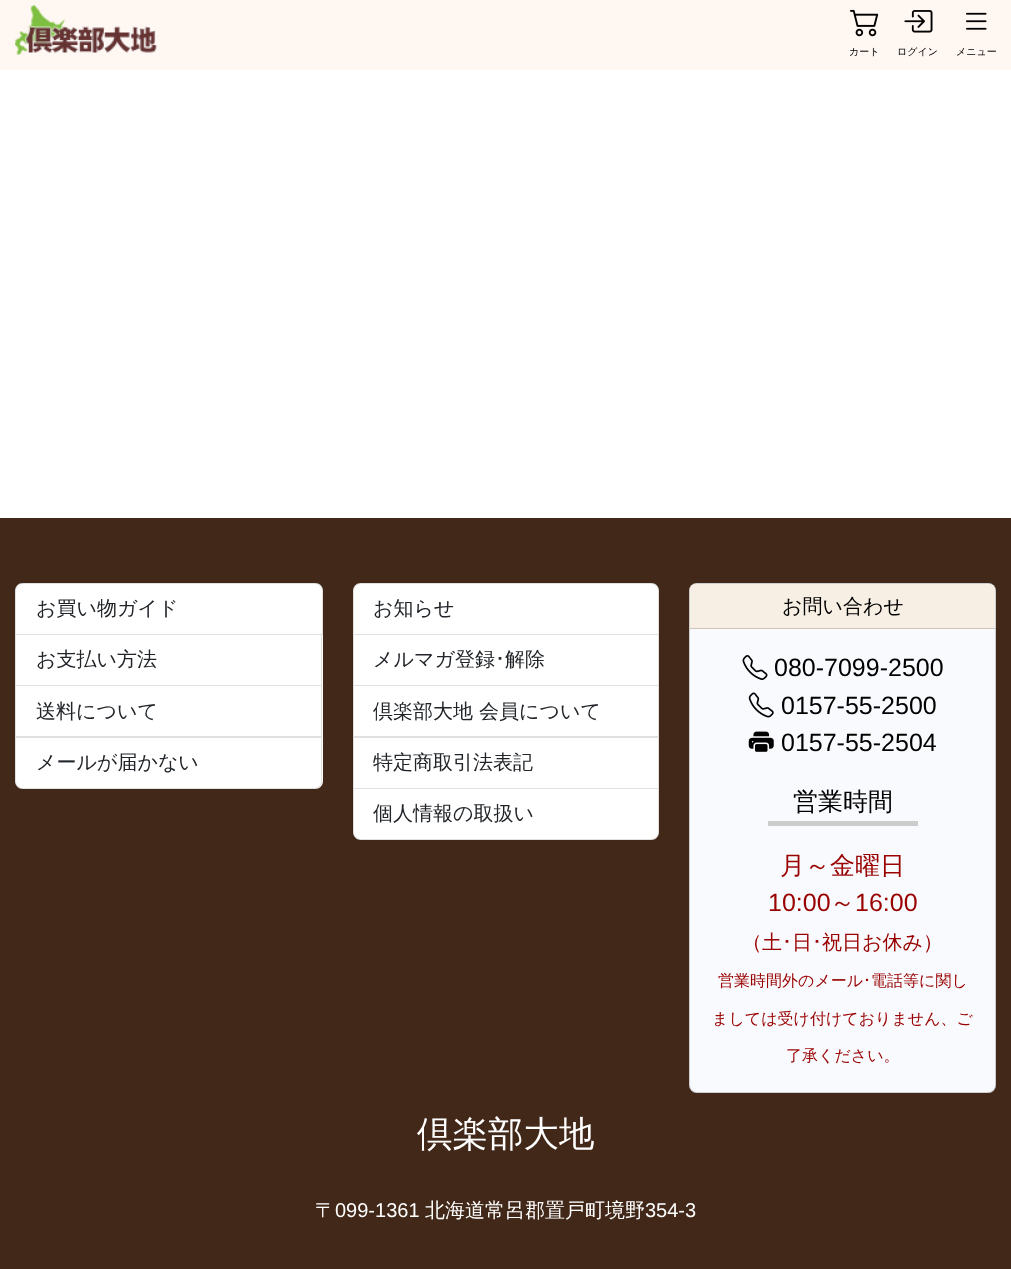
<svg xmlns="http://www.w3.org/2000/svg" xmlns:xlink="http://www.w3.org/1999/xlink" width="1011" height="1269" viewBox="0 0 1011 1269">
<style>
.cls-1{font:500 10px WenQuanYi Zen Hei;fill:#000000}
.cls-2{font:500 20px WenQuanYi Zen Hei;fill:#212529}
.cls-3{font:20px IPAPGothic;fill:#212529}
.cls-4{font:500 20px WenQuanYi Zen Hei;fill:#000000}
.cls-5{font:25px Liberation Sans;fill:#000000}
.cls-6{font:500 25px WenQuanYi Zen Hei;fill:#000000}
.cls-7{font:500 25px WenQuanYi Zen Hei;fill:#990000}
.cls-8{font:25px Liberation Sans;fill:#990000}
.cls-9{font:500 20px WenQuanYi Zen Hei;fill:#990000}
.cls-10{font:20px IPAPGothic;fill:#990000}
.cls-11{font:500 16px WenQuanYi Zen Hei;fill:#990000}
.cls-12{font:16px IPAPGothic;fill:#990000}
.cls-13{font:500 35.5px WenQuanYi Zen Hei;fill:#ffffff}
.cls-14{font:500 20px WenQuanYi Zen Hei;fill:#ffffff}
.cls-15{font:20px Liberation Sans;fill:#ffffff}
</style>
<rect width="100%" height="100%" fill="#ffffff"/>
<rect fill="#fff7f2" x="0" y="0" width="1011" height="70"/>
<image xlink:href="image0.png" x="15" y="5" width="142" height="50"/>
<image xlink:href="image1.png" x="850" y="9" width="29" height="28"/>
<image xlink:href="image2.png" x="904" y="10" width="29" height="23"/>
<image xlink:href="image3.png" x="966" y="12" width="21" height="18"/>
<rect fill="#412818" x="0" y="518" width="1011" height="751"/>
<path fill="#ffffff" d="M23 583H315C319.5 583 323 586.5 323 591V635H15V591C15 586.5 18.5 583 23 583Z"/>
<path fill="none" stroke="#000000" stroke-opacity="0.12" d="M23 583.5H315C319 583.5 322.5 587 322.5 591V634.5H15.5V591C15.5 587 19 583.5 23 583.5Z"/>
<rect fill="#ffffff" x="15" y="635" width="308" height="103"/>
<path fill="#dfdfdf" d="M322 635V686L321 685V635Z"/>
<path fill="#000000" fill-opacity="0.12" d="M322 686H15L16 685H321Z"/>
<path fill="#000000" fill-opacity="0.12" d="M15 686V635H16V685Z"/>
<path fill="#dfdfdf" d="M322 686V738L321 736V686Z"/>
<path fill="#000000" fill-opacity="0.12" d="M322 738H15L16 736H321Z"/>
<path fill="#000000" fill-opacity="0.12" d="M15 738V686H16V736Z"/>
<path fill="#ffffff" d="M15 738H323V781C323 785.5 319.5 789 315 789H23C18.5 789 15 785.5 15 781Z"/>
<path fill="#000000" fill-opacity="0.12" fill-rule="evenodd" d="M15 738H322V781C322 785 319 789 315 789H22C18 789 15 785 15 781ZM16 738H321V781C321 785 318 788 315 788H22C19 788 16 785 16 781Z"/>
<path fill="#ffffff" d="M361 583H651C655.5 583 659 586.5 659 591V635H353V591C353 586.5 356.5 583 361 583Z"/>
<path fill="none" stroke="#000000" stroke-opacity="0.12" d="M361 583.5H651C655 583.5 658.5 587 658.5 591V634.5H353.5V591C353.5 587 357 583.5 361 583.5Z"/>
<rect fill="#ffffff" x="353" y="635" width="306" height="154"/>
<path fill="#dfdfdf" d="M659 635V686L658 685V635Z"/>
<path fill="#000000" fill-opacity="0.12" d="M659 686H352L354 685H658Z"/>
<path fill="#000000" fill-opacity="0.12" d="M352 686V635H354V685Z"/>
<path fill="#dfdfdf" d="M659 686V738L658 736V686Z"/>
<path fill="#000000" fill-opacity="0.12" d="M659 738H352L354 736H658Z"/>
<path fill="#000000" fill-opacity="0.12" d="M352 738V686H354V736Z"/>
<path fill="#dfdfdf" d="M659 738V789L658 788V738Z"/>
<path fill="#000000" fill-opacity="0.12" d="M659 789H352L354 788H658Z"/>
<path fill="#000000" fill-opacity="0.12" d="M352 789V738H354V788Z"/>
<path fill="#ffffff" d="M353 789H659V832C659 836.5 655.5 840 651 840H361C356.5 840 353 836.5 353 832Z"/>
<path fill="#000000" fill-opacity="0.12" fill-rule="evenodd" d="M352 789H659V832C659 837 655 840 651 840H360C356 840 352 837 352 832ZM354 789H658V832C658 836 655 839 651 839H360C357 839 354 836 354 832Z"/>
<rect fill="#f9fafd" x="689" y="583" width="307" height="510" rx="8"/>
<rect fill="none" stroke="#000000" stroke-opacity="0.18" x="689.5" y="583.5" width="306" height="509" rx="7.5"/>
<path fill="#f7efe4" d="M696 584H989C992.5 584 995 586.5 995 590V629H690V590C690 586.5 692.5 584 696 584Z"/>
<rect fill="#ccc5bc" x="690" y="628" width="305" height="1"/>
<image xlink:href="image4.png" x="742" y="655" width="26" height="25"/>
<image xlink:href="image5.png" x="748" y="692" width="26" height="26"/>
<image xlink:href="image6.png" x="748" y="731" width="26" height="21"/>
<rect fill="#cccccc" x="768" y="821" width="150" height="5"/>
<text class="cls-1" x="849" y="55">カート</text>
<text class="cls-1" x="897" y="55">ログイン</text>
<text class="cls-1" x="956" y="55">メニュー</text>
<text class="cls-2" x="36" y="615">お買い物ガイド</text>
<text class="cls-2" x="36" y="666">お支払い方法</text>
<text class="cls-2" x="36" y="718">送料について</text>
<text class="cls-2" x="36" y="769">メールが届かない</text>
<text class="cls-2" x="373" y="615">お知らせ</text>
<text class="cls-2" x="373" y="666">メルマガ登録</text>
<text class="cls-3" x="495" y="666">･</text>
<text class="cls-2" x="505" y="666">解除</text>
<text class="cls-2" x="373" y="718">倶楽部大地 会員について</text>
<text class="cls-2" x="373" y="769">特定商取引法表記</text>
<text class="cls-2" x="373" y="820">個人情報の取扱い</text>
<text class="cls-4" x="782" y="613">お問い合わせ</text>
<text class="cls-5" x="774" y="676">080-7099-2500</text>
<text class="cls-5"><tspan x="781" y="714">0157-55-2500</tspan><tspan x="781" y="751">0157-55-2504</tspan></text>
<text class="cls-6" x="793" y="810">営業時間</text>
<text class="cls-7" x="780" y="874">月～金曜日</text>
<text class="cls-8" x="768" y="911">10:00</text>
<text class="cls-7" x="830" y="911">～</text>
<text class="cls-8" x="855" y="911">16:00</text>
<text class="cls-9" x="742" y="949">（土</text>
<text class="cls-10" x="782" y="949">･</text>
<text class="cls-9" x="792" y="949">日</text>
<text class="cls-10" x="812" y="949">･</text>
<text class="cls-9" x="822" y="949">祝日お休み）</text>
<text class="cls-11" x="718" y="986">営業時間外のメール</text>
<text class="cls-12" x="863" y="986">･</text>
<text class="cls-11" x="871" y="986">電話等に関し</text>
<text class="cls-11" x="712" y="1024">ましては受け付けておりません、ご</text>
<text class="cls-11" x="786" y="1061">了承ください。</text>
<text class="cls-13" x="417" y="1146">倶楽部大地</text>
<text class="cls-14" x="315" y="1217">〒</text>
<text class="cls-15" x="335" y="1217">099-1361</text>
<text class="cls-14" x="425" y="1217">北海道常呂郡置戸町境野</text>
<text class="cls-15" x="645" y="1217">354-3</text>
</svg>
